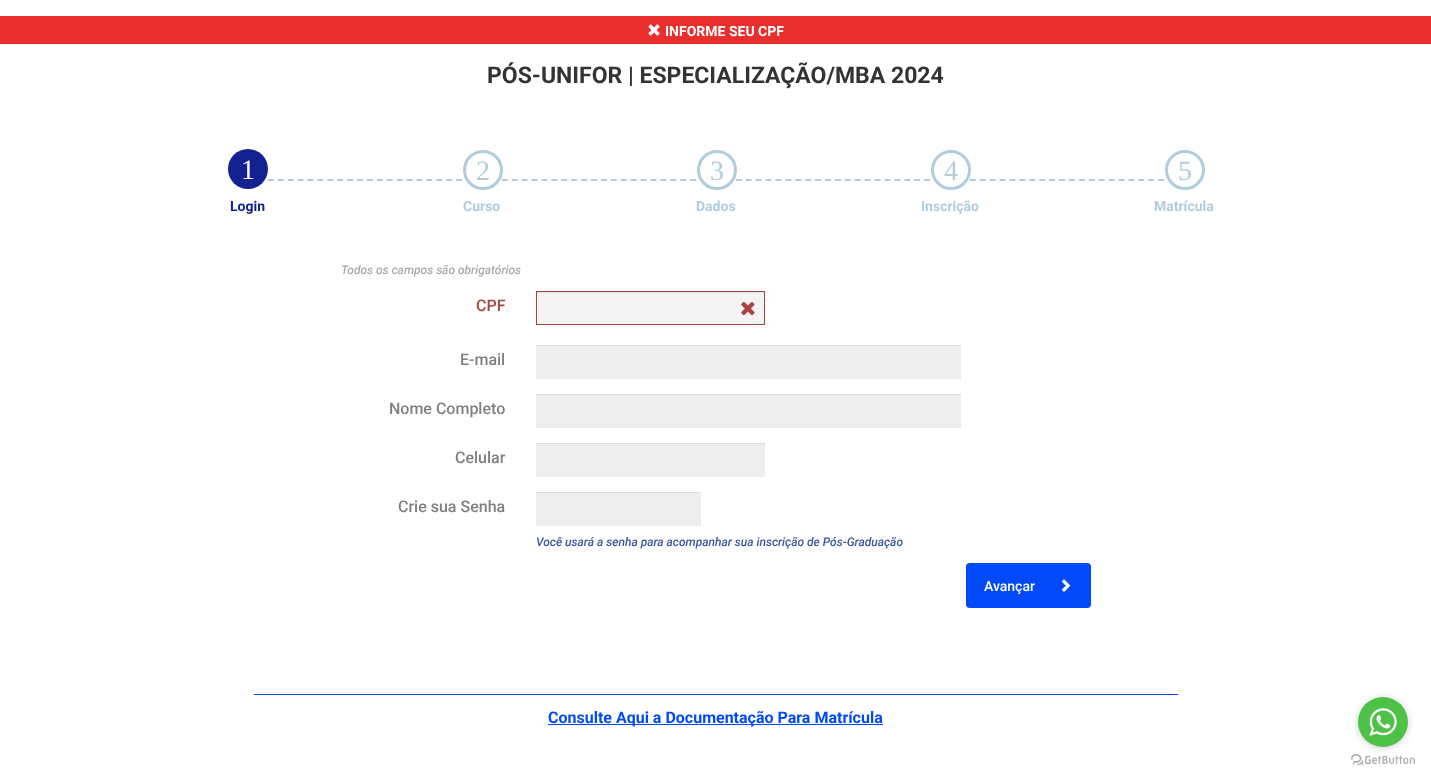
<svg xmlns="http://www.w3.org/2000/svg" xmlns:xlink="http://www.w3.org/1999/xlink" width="1431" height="781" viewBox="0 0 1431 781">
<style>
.cls-1{font:bold 14px Roboto;fill:#ffffff}
.cls-2{font:bold 23px Roboto;fill:#333333}
.cls-3{font:28px Liberation Serif;fill:#ffffff}
.cls-4{font:bold 14px Roboto;fill:#132190}
.cls-5{font:28px Liberation Serif;fill:#afcddc}
.cls-6{font:bold 14px Roboto;fill:#afcddc}
.cls-7{font:italic 500 12px Roboto;fill:#aaaaaa}
.cls-8{font:500 16px Roboto;fill:#a94442}
.cls-9{font:500 16px Roboto;fill:#808080}
.cls-10{font:italic 500 12px Roboto;fill:#3b579c}
.cls-11{font:500 14px Roboto;fill:#ffffff}
.cls-12{font:bold 16px Roboto;fill:#024af7}
</style>
<rect width="100%" height="100%" fill="#ffffff"/>
<rect fill="#e92e2e" x="0" y="16" width="1431" height="28"/>
<image xlink:href="image0.png" x="648" y="24" width="12" height="12"/>
<path fill="none" stroke="#afcddc" stroke-width="2" stroke-dasharray="6 3.91" d="M248 180H482"/>
<circle fill="#132190" cx="248" cy="169" r="20"/>
<path fill="none" stroke="#afcddc" stroke-width="2" stroke-dasharray="6 3.91" d="M482 180H716"/>
<circle fill="#ffffff" stroke="#afcddc" stroke-width="3" cx="483" cy="170" r="18.5"/>
<path fill="none" stroke="#afcddc" stroke-width="2" stroke-dasharray="6 3.91" d="M716 180H950"/>
<circle fill="#ffffff" stroke="#afcddc" stroke-width="3" cx="717" cy="170" r="18.5"/>
<path fill="none" stroke="#afcddc" stroke-width="2" stroke-dasharray="6 3.91" d="M950 180H1184"/>
<circle fill="#ffffff" stroke="#afcddc" stroke-width="3" cx="951" cy="170" r="18.5"/>
<circle fill="#ffffff" stroke="#afcddc" stroke-width="3" cx="1185" cy="170" r="18.5"/>
<rect fill="#f4f4f4" x="537" y="293" width="227" height="31"/>
<rect fill="#e2e2e2" x="537" y="292" width="227" height="1"/>
<rect fill="none" stroke="#a94442" x="536.5" y="291.5" width="228" height="33"/>
<image xlink:href="image1.png" x="741" y="302" width="14" height="14"/>
<rect fill="#eeeeee" x="536" y="346" width="425" height="33"/>
<rect fill="#dcdcdc" x="536" y="345" width="425" height="1"/>
<rect fill="#eeeeee" x="536" y="395" width="425" height="33"/>
<rect fill="#dcdcdc" x="536" y="394" width="425" height="1"/>
<rect fill="#eeeeee" x="536" y="444" width="229" height="33"/>
<rect fill="#dcdcdc" x="536" y="443" width="229" height="1"/>
<rect fill="#eeeeee" x="536" y="493" width="165" height="33"/>
<rect fill="#dcdcdc" x="536" y="492" width="165" height="1"/>
<rect fill="#024af7" x="966" y="563" width="125" height="45" rx="4"/>
<image xlink:href="image2.png" x="1061" y="579" width="10" height="13"/>
<rect fill="#024af7" x="254" y="694" width="924" height="1"/>
<rect fill="#024af7" x="548" y="724" width="335" height="1"/>
<image xlink:href="image4.png" x="1351" y="754" width="64" height="11"/>
<rect fill="#888888" fill-opacity="0.4" filter="blur(3.5px)" x="1358" y="698" width="50" height="50" rx="25"/>
<circle fill="#4dc247" cx="1383" cy="722" r="25"/>
<image xlink:href="image3.png" x="1369" y="708" width="28" height="28"/>
<text class="cls-1" x="665" y="36">INFORME SEU CPF</text>
<text class="cls-2" x="487" y="83">PÓS-UNIFOR | ESPECIALIZAÇÃO/MBA 2024</text>
<text class="cls-3" x="241" y="179">1</text>
<text class="cls-4" x="230" y="211">Login</text>
<text class="cls-5" x="476" y="180">2</text>
<text class="cls-6" x="463" y="211">Curso</text>
<text class="cls-5" x="710" y="180">3</text>
<text class="cls-6" x="696" y="211">Dados</text>
<text class="cls-5" x="944" y="180">4</text>
<text class="cls-6" x="921" y="211">Inscrição</text>
<text class="cls-5" x="1178" y="180">5</text>
<text class="cls-6" x="1154" y="211">Matrícula</text>
<text class="cls-7" x="341" y="274">Todos os campos são obrigatórios</text>
<text class="cls-8" x="476" y="311">CPF</text>
<text class="cls-9" x="460" y="365">E-mail</text>
<text class="cls-9" x="389" y="414">Nome Completo</text>
<text class="cls-9" x="455" y="463">Celular</text>
<text class="cls-9" x="398" y="512">Crie sua Senha</text>
<text class="cls-10" x="536" y="546">Você usará a senha para acompanhar sua inscrição de Pós-Graduação</text>
<text class="cls-11" x="984" y="591">Avançar</text>
<text class="cls-12" x="548" y="723">Consulte Aqui a Documentação Para Matrícula</text>
</svg>
